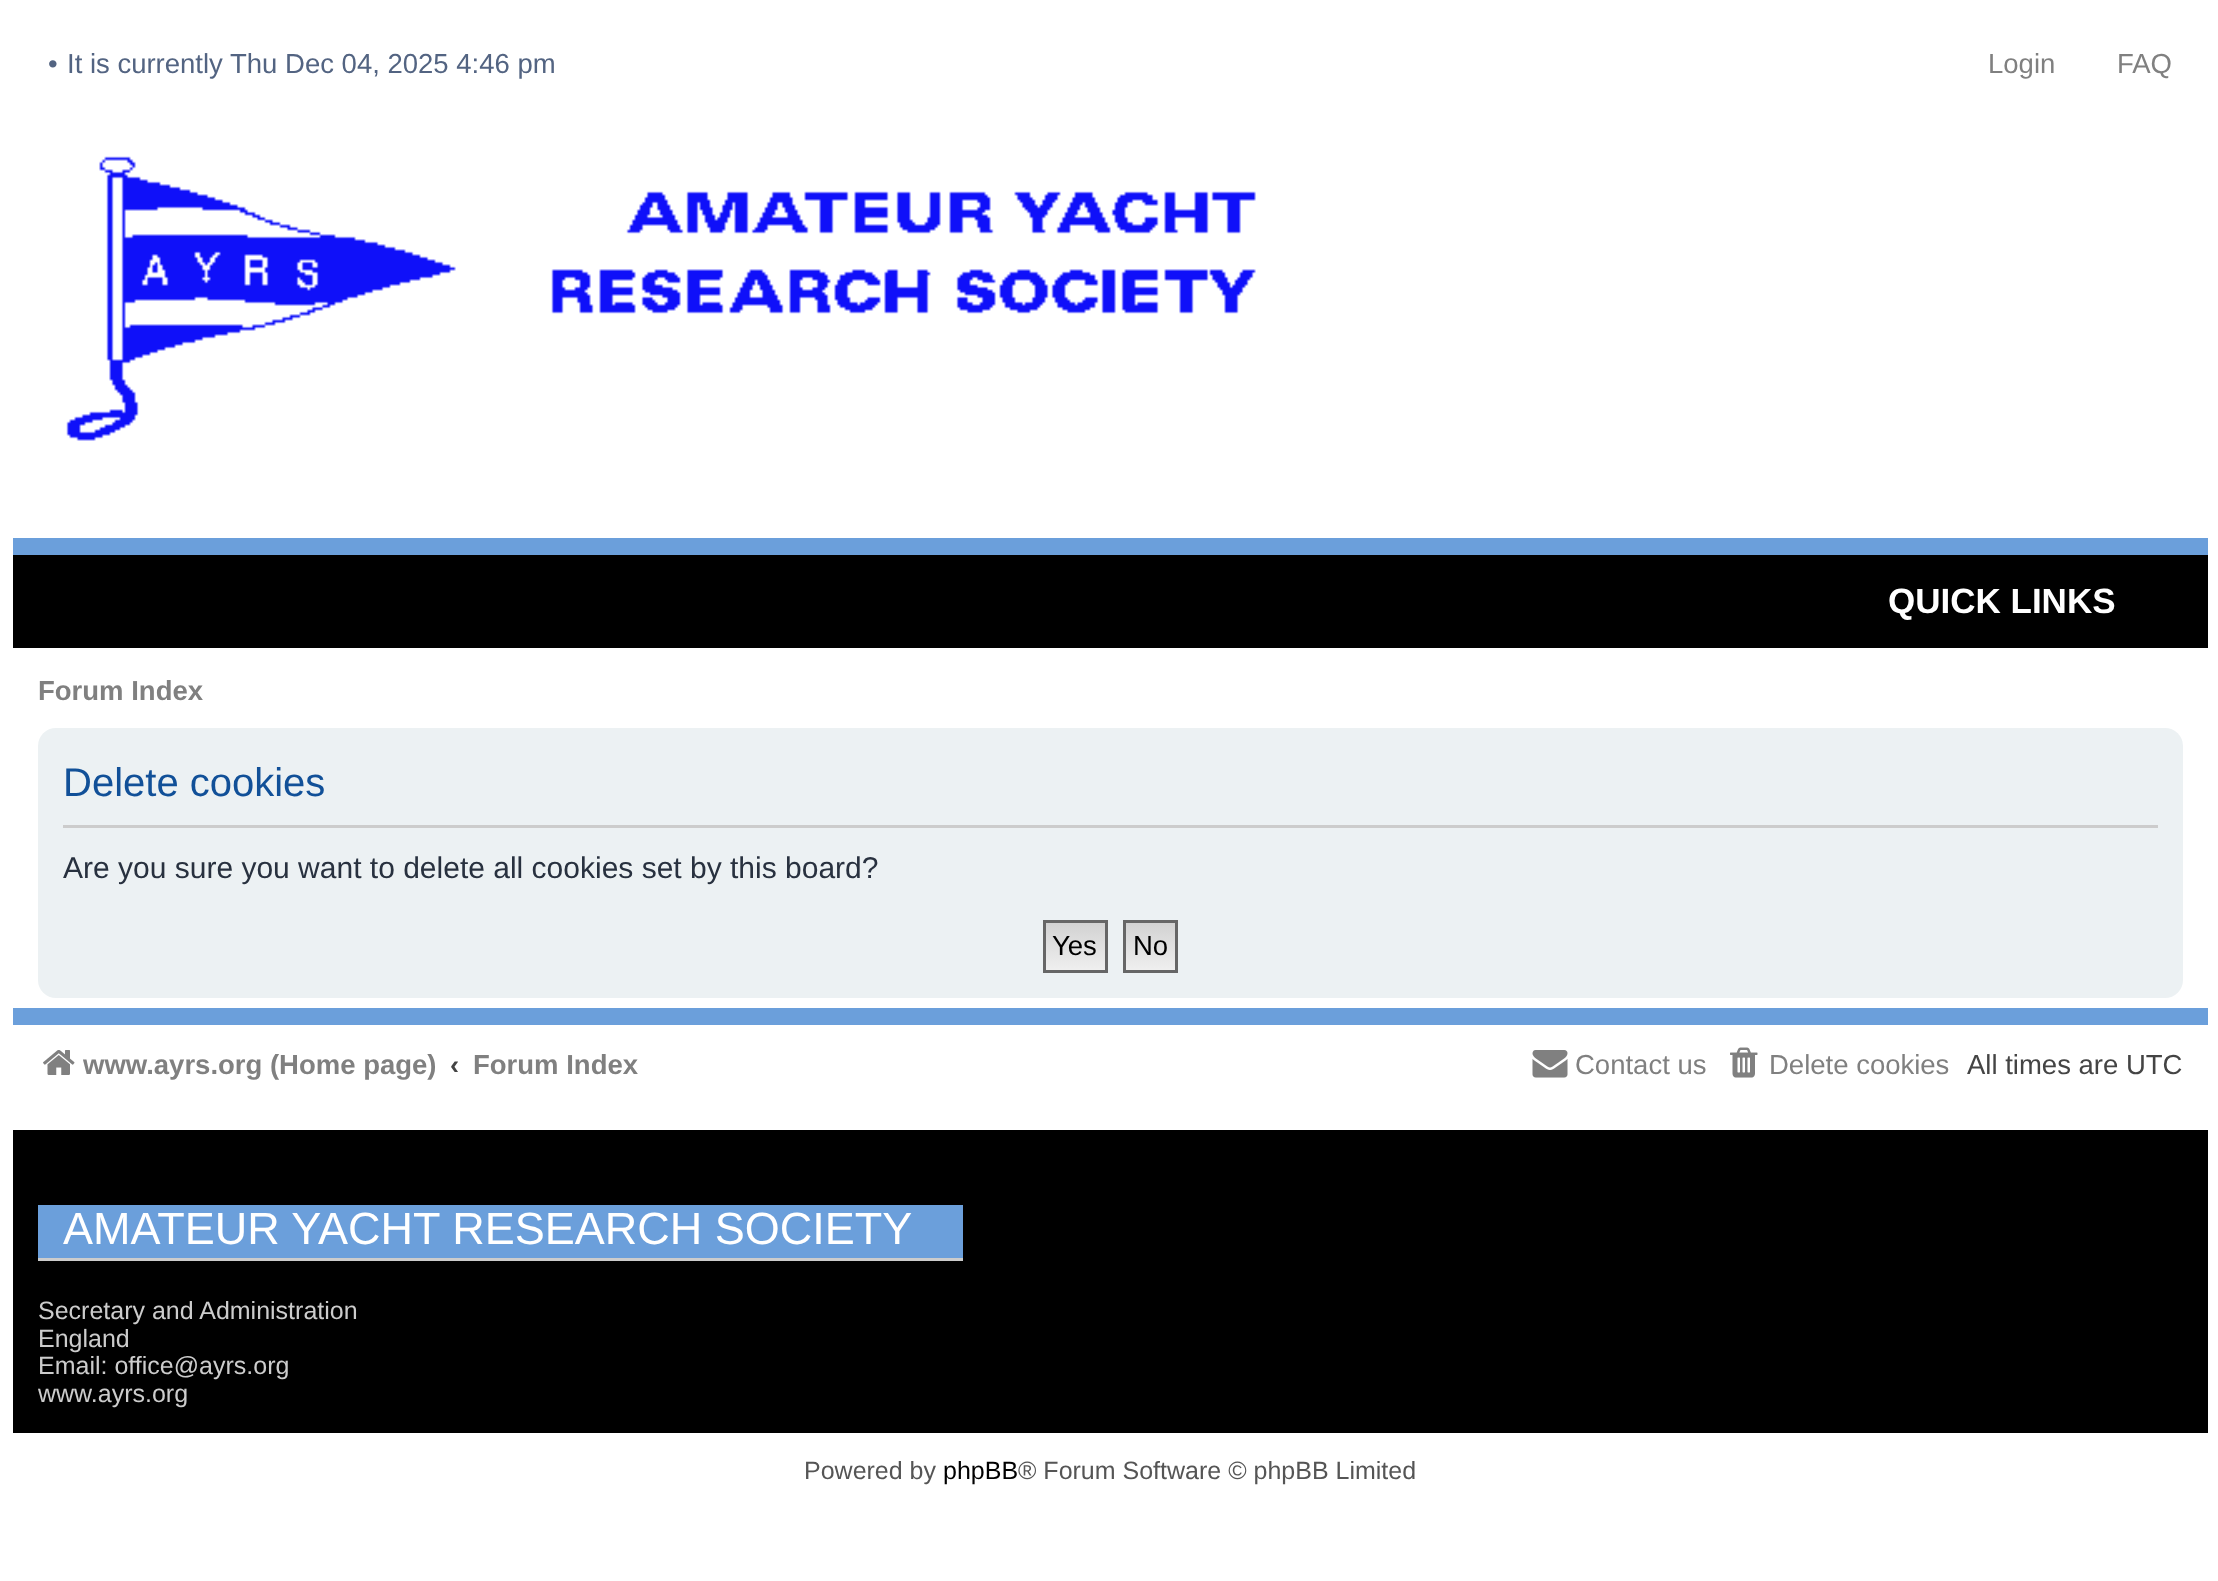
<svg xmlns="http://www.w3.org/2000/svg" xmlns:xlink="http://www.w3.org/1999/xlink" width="2218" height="1581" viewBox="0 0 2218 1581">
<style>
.cls-1{font:27.5px Liberation Sans;fill:#536482}
.cls-2{font:27.5px Liberation Sans;fill:#808080}
.cls-3{font:bold 35px Liberation Sans;fill:#ffffff}
.cls-4{font:bold 27.5px Liberation Sans;fill:#808080}
.cls-5{font:40px Liberation Sans;fill:#115098}
.cls-6{font:30px Liberation Sans;fill:#28313f}
.cls-7{font:27.5px Liberation Sans;fill:#000000}
.cls-8{font:bold 27.5px Liberation Sans;fill:#444444}
.cls-9{font:27.5px Liberation Sans;fill:#444444}
.cls-10{font:45px Liberation Sans;fill:#ffffff}
.cls-11{font:25px Liberation Sans;fill:#cccccc}
.cls-12{font:25px Liberation Sans;fill:#555555}
.cls-13{font:25px Liberation Sans;fill:#000000}
</style>
<defs>
<linearGradient id="g1" gradientUnits="userSpaceOnUse" x1="1075" y1="923" x2="1075" y2="970"><stop offset="0" stop-color="#d2d2d2"/><stop offset="1" stop-color="#efefef"/></linearGradient>
<linearGradient id="g2" gradientUnits="userSpaceOnUse" x1="1150" y1="923" x2="1150" y2="970"><stop offset="0" stop-color="#d2d2d2"/><stop offset="1" stop-color="#efefef"/></linearGradient>
</defs>
<rect width="100%" height="100%" fill="#ffffff"/>
<image xlink:href="image0.png" x="66" y="156" width="1190" height="285"/>
<rect fill="#6b9fdb" x="13" y="538" width="2195" height="17"/>
<rect fill="#000000" x="13" y="555" width="2195" height="93"/>
<rect fill="#ecf1f3" x="38" y="728" width="2145" height="270" rx="18"/>
<rect fill="#cccccc" x="63" y="825" width="2095" height="3"/>
<rect fill="url(#g1)" x="1046" y="923" width="59" height="47"/>
<rect fill="none" stroke="#666666" stroke-width="3" x="1044.5" y="921.5" width="62" height="50"/>
<rect fill="url(#g2)" x="1126" y="923" width="49" height="47"/>
<rect fill="none" stroke="#666666" stroke-width="3" x="1124.5" y="921.5" width="52" height="50"/>
<rect fill="#6b9fdb" x="13" y="1008" width="2195" height="17"/>
<image xlink:href="image1.png" x="43" y="1050" width="32" height="25"/>
<image xlink:href="image2.png" x="1532" y="1050" width="36" height="28"/>
<image xlink:href="image3.png" x="1730" y="1047" width="28" height="31"/>
<rect fill="#000000" x="13" y="1130" width="2195" height="303"/>
<rect fill="#6b9fdb" x="38" y="1205" width="925" height="53"/>
<rect fill="#cccccc" x="38" y="1258" width="925" height="3"/>
<text class="cls-1" x="48" y="73">•</text>
<text class="cls-1" x="67" y="73">It is currently Thu Dec 04, 2025 4:46 pm</text>
<text class="cls-2" x="1988" y="73">Login</text>
<text class="cls-2" x="2117" y="73">FAQ</text>
<text class="cls-3" x="1888" y="613">QUICK LINKS</text>
<text class="cls-4" x="38" y="700">Forum Index</text>
<text class="cls-5" x="63" y="796">Delete cookies</text>
<text class="cls-6" x="63" y="878">Are you sure you want to delete all cookies set by this board?</text>
<text class="cls-7" x="1052" y="955">Yes</text>
<text class="cls-7" x="1133" y="955">No</text>
<text class="cls-4" x="83" y="1074">www.ayrs.org (Home page)</text>
<text class="cls-8" x="450" y="1074">‹</text>
<text class="cls-4" x="473" y="1074">Forum Index</text>
<text class="cls-2" x="1575" y="1074">Contact us</text>
<text class="cls-2" x="1769" y="1074">Delete cookies</text>
<text class="cls-9" x="1967" y="1074">All times are UTC</text>
<text class="cls-10" x="63" y="1244">AMATEUR YACHT RESEARCH SOCIETY</text>
<text class="cls-11"><tspan x="38" y="1319">Secretary and Administration</tspan><tspan x="38" y="1347">England</tspan><tspan x="38" y="1374">Email: office@ayrs.org</tspan><tspan x="38" y="1402">www.ayrs.org</tspan></text>
<text class="cls-12" x="804" y="1479">Powered by</text>
<text class="cls-13" x="943" y="1479">phpBB</text>
<text class="cls-12" x="1018" y="1479">® Forum Software © phpBB Limited</text>
</svg>
